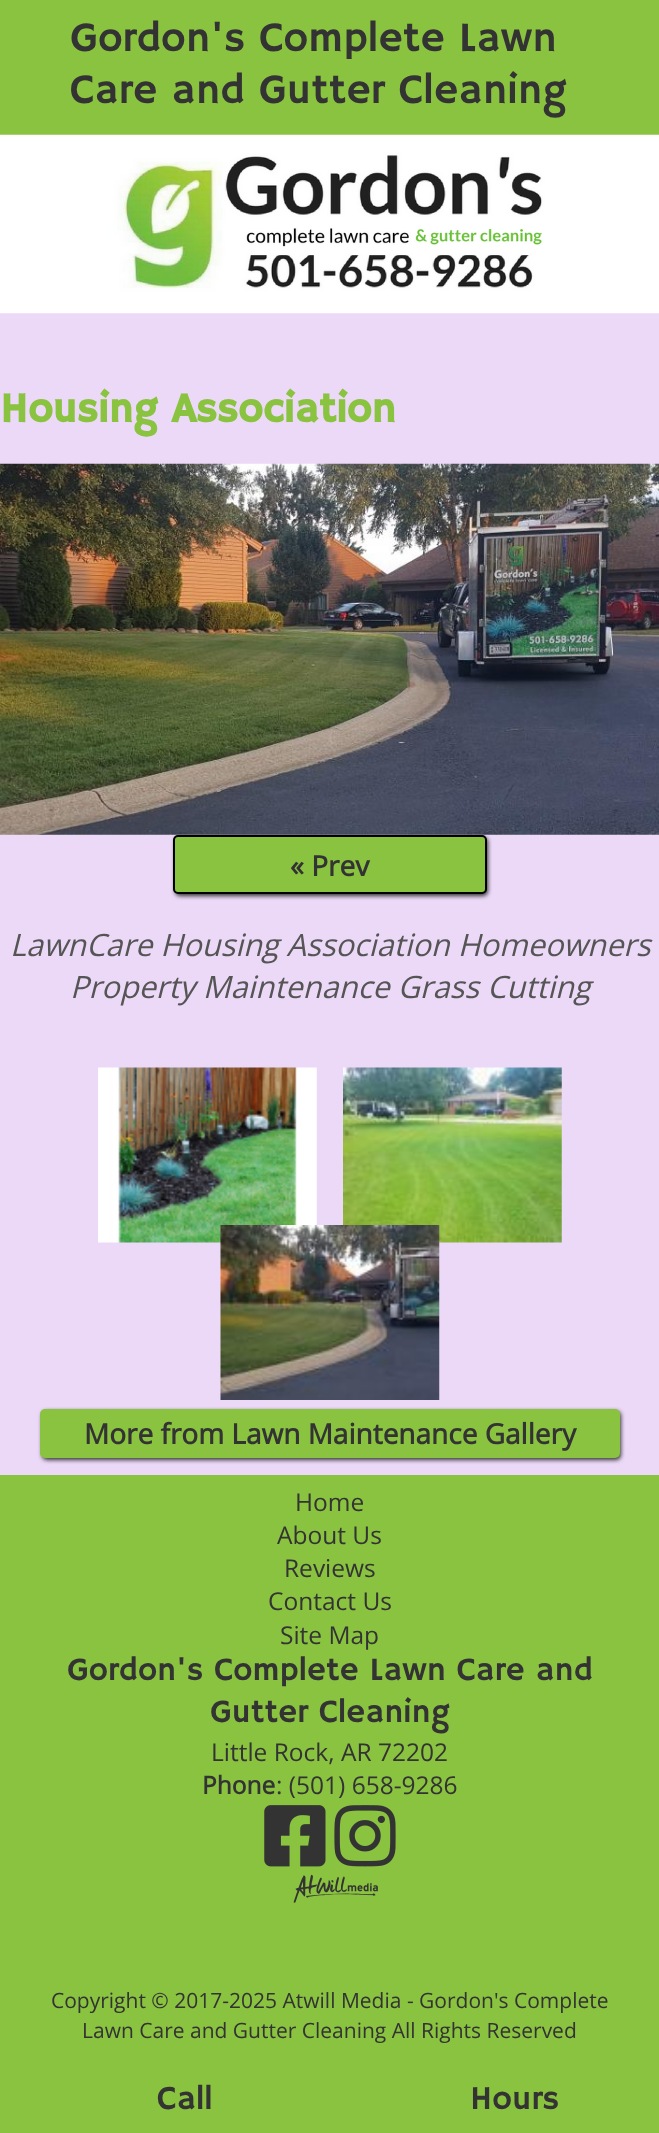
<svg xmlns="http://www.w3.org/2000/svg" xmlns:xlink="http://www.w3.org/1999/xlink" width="659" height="2133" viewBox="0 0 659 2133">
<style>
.cls-1{font:42px Hammersmith One;fill:#333333}
.cls-2{font:bold 42px Hammersmith One;fill:#8ac340}
.cls-3{font:bold 28px Open Sans;fill:#333333}
.cls-4{font:italic 30.8px Open Sans;fill:#555555}
.cls-5{font:24.5px Open Sans;fill:#333333}
.cls-6{font:32.7px Hammersmith One;fill:#333333}
.cls-7{font:bold 24.5px Open Sans;fill:#333333}
.cls-8{font:21px Open Sans;fill:#333333}
.cls-9{font:33.5px Hammersmith One;fill:#333333}
</style>
<rect width="100%" height="100%" fill="#8ac340"/>
<rect fill="#ecd9f8" x="0" y="313" width="659" height="1162"/>
<image xlink:href="image0.png" x="0" y="134" width="659" height="180"/>
<image xlink:href="image1.png" x="0" y="463" width="659" height="372"/>
<rect fill="#333333" filter="blur(2px)" x="175" y="837" width="313" height="59" rx="5"/>
<rect fill="#8ac340" stroke="#000000" stroke-width="2" x="174" y="836" width="312" height="57" rx="4"/>
<image xlink:href="image2.png" x="98" y="1067" width="219" height="176"/>
<image xlink:href="image3.png" x="343" y="1067" width="219" height="176"/>
<image xlink:href="image4.png" x="220" y="1225" width="220" height="175"/>
<rect fill="#333333" filter="blur(2px)" x="42" y="1411" width="579" height="49" rx="5"/>
<rect fill="#8ac340" x="40" y="1409" width="580" height="49" rx="5"/>
<image xlink:href="image5.png" x="264" y="1805" width="62" height="62"/>
<image xlink:href="image6.png" x="334" y="1805" width="62" height="62"/>
<image xlink:href="image7.png" x="293" y="1874" width="85" height="29"/>
<text class="cls-1"><tspan x="70" y="51">Gordon's Complete Lawn</tspan><tspan x="70" y="103">Care and Gutter Cleaning</tspan></text>
<text class="cls-2" x="0" y="422">Housing Association</text>
<text class="cls-3" x="290" y="876">« Prev</text>
<text class="cls-4" x="10" y="956">LawnCare Housing Association Homeowners</text>
<text class="cls-4" x="70" y="998">Property Maintenance Grass Cutting</text>
<text class="cls-3" x="84" y="1444">More from Lawn Maintenance Gallery</text>
<text class="cls-5" x="295" y="1511">Home</text>
<text class="cls-5" x="277" y="1544">About Us</text>
<text class="cls-5" x="284" y="1577">Reviews</text>
<text class="cls-5" x="268" y="1610">Contact Us</text>
<text class="cls-5" x="280" y="1644">Site Map</text>
<text class="cls-6" x="67" y="1680">Gordon's Complete Lawn Care and</text>
<text class="cls-6" x="210" y="1722">Gutter Cleaning</text>
<text class="cls-5" x="211" y="1761">Little Rock, AR 72202</text>
<text class="cls-7" x="202" y="1794">Phone</text>
<text class="cls-5" x="276" y="1794">: (501) 658-9286</text>
<text class="cls-8" x="51" y="2008">Copyright © 2017-2025 Atwill Media - Gordon's Complete</text>
<text class="cls-8" x="82" y="2038">Lawn Care and Gutter Cleaning All Rights Reserved</text>
<text class="cls-9" x="157" y="2109">Call</text>
<text class="cls-9" x="470" y="2109">Hours</text>
</svg>
